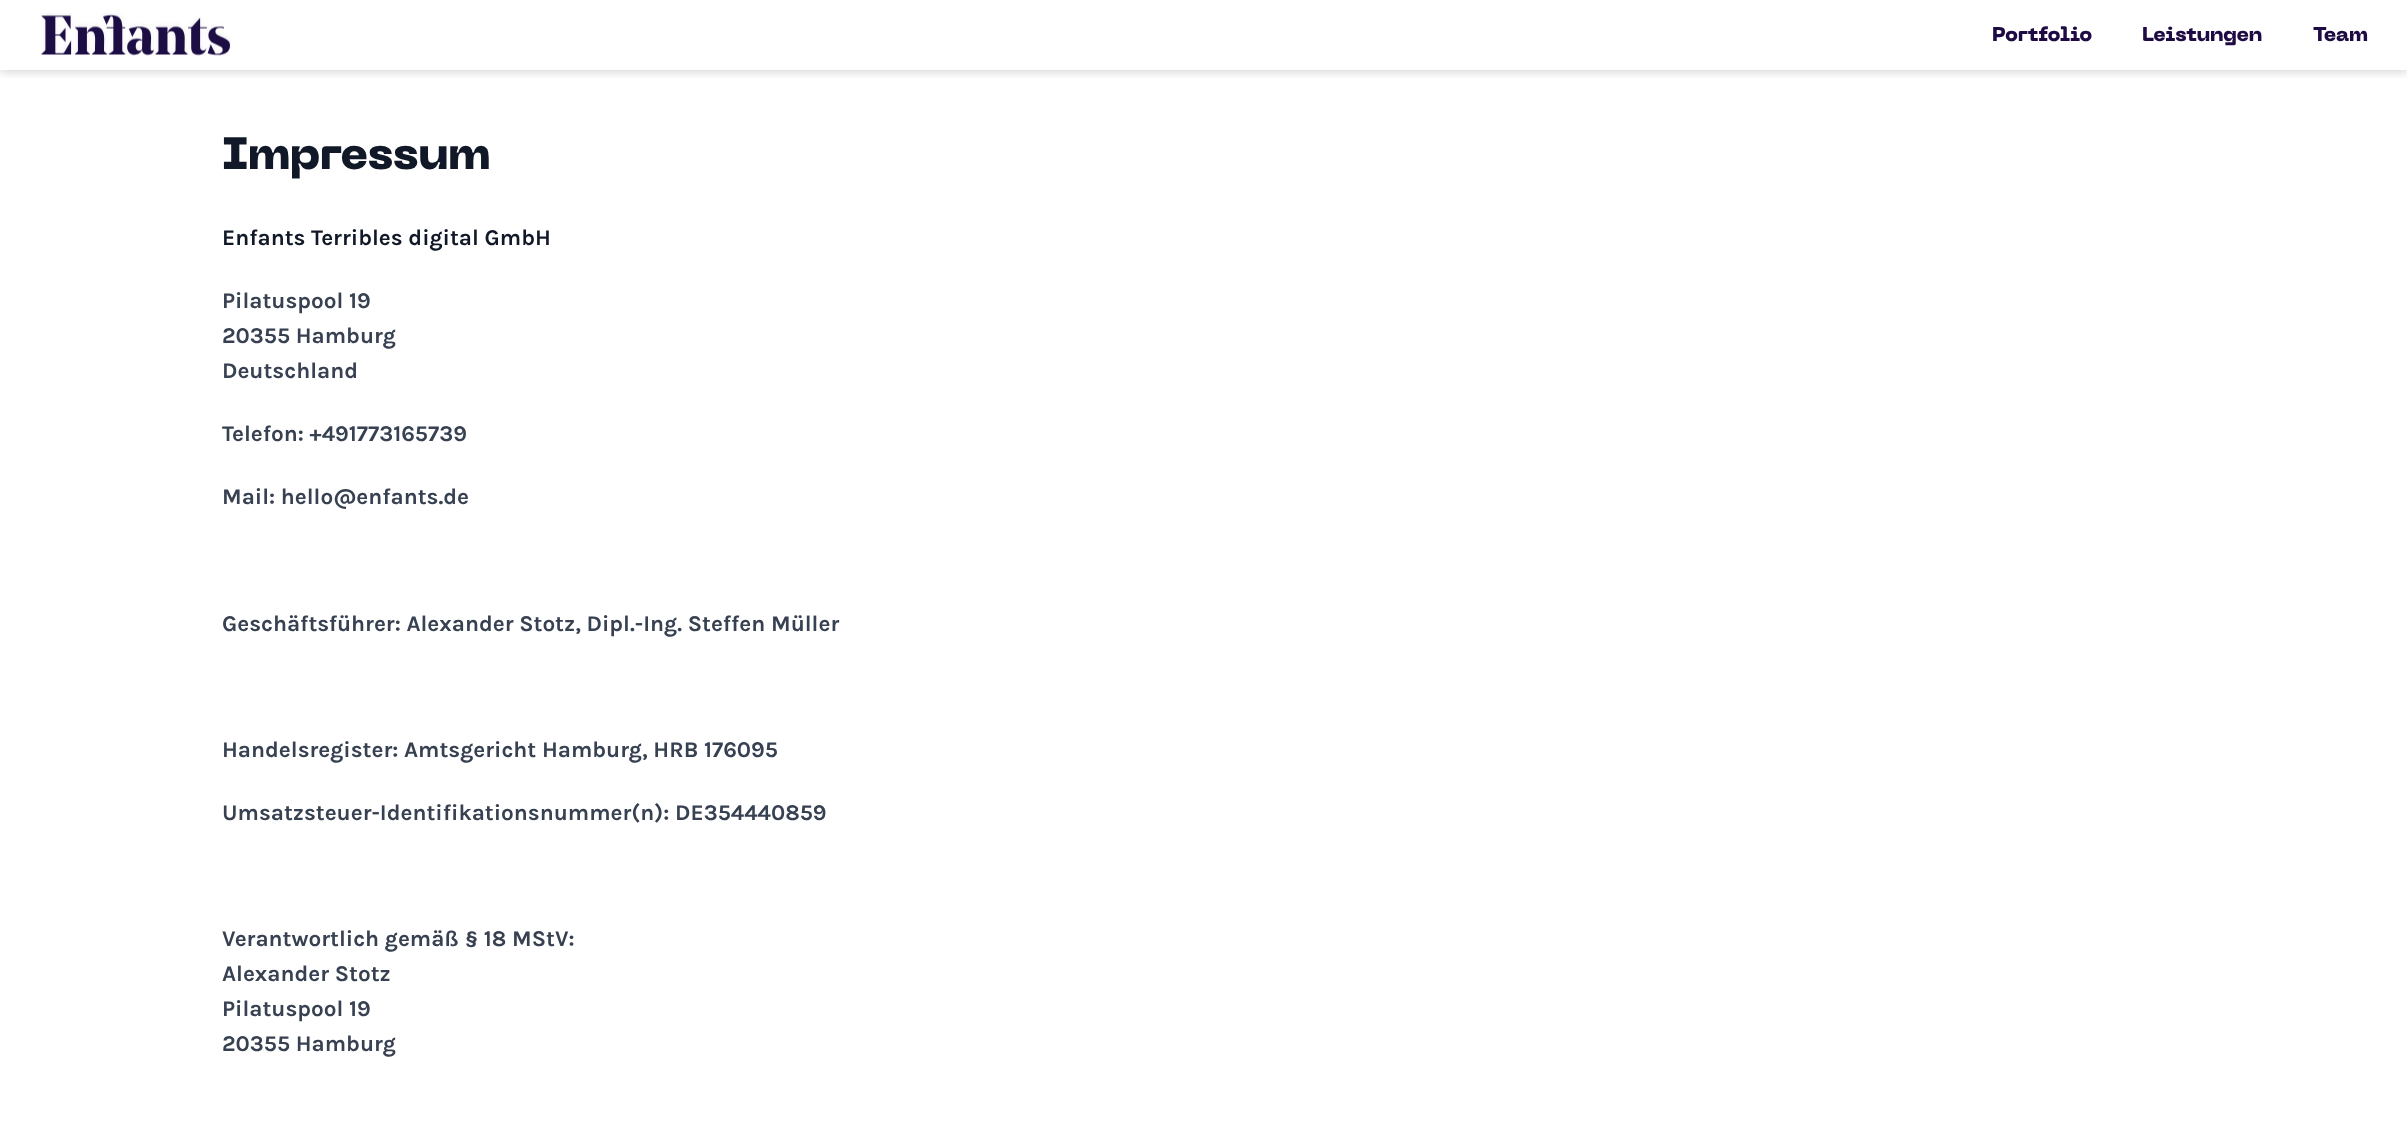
<svg xmlns="http://www.w3.org/2000/svg" xmlns:xlink="http://www.w3.org/1999/xlink" width="2407" height="1148" viewBox="0 0 2407 1148">
<style>
.cls-1{font:800 20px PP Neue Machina;fill:#1f0b44}
.cls-2{font:800 45px PP Neue Machina;fill:#111827}
.cls-3{font:bold 22.5px Karla;fill:#111827}
.cls-4{font:bold 22.5px Karla;fill:#374151}
</style>
<defs>
<clipPath id="clip1"><rect x="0" y="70" width="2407" height="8"/></clipPath>
</defs>
<rect width="100%" height="100%" fill="#ffffff"/>
<g clip-path="url(#clip1)">
<rect fill="#000000" fill-opacity="0.23" filter="blur(6px)" x="0" y="0" width="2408" height="70"/>
</g>
<image xlink:href="image0.png" x="41" y="13" width="190" height="43"/>
<text class="cls-1" x="1992" y="41">Portfolio</text>
<text class="cls-1" x="2142" y="41">Leistungen</text>
<text class="cls-1" x="2313" y="41">Team</text>
<text class="cls-2" x="222" y="169">Impressum</text>
<text class="cls-3" x="222" y="245">Enfants Terribles digital GmbH</text>
<text class="cls-4"><tspan x="222" y="308">Pilatuspool 19</tspan><tspan x="222" y="343">20355 Hamburg</tspan><tspan x="222" y="378">Deutschland</tspan></text>
<text class="cls-4" x="222" y="441">Telefon: +491773165739</text>
<text class="cls-4" x="222" y="504">Mail: hello@enfants.de</text>
<text class="cls-4" x="222" y="631">Geschäftsführer: Alexander Stotz, Dipl.-Ing. Steffen Müller</text>
<text class="cls-4" x="222" y="757">Handelsregister: Amtsgericht Hamburg, HRB 176095</text>
<text class="cls-4" x="222" y="820">Umsatzsteuer-Identifikationsnummer(n): DE354440859</text>
<text class="cls-4"><tspan x="222" y="946">Verantwortlich gemäß § 18 MStV:</tspan><tspan x="222" y="981">Alexander Stotz</tspan><tspan x="222" y="1016">Pilatuspool 19</tspan><tspan x="222" y="1051">20355 Hamburg</tspan></text>
</svg>
